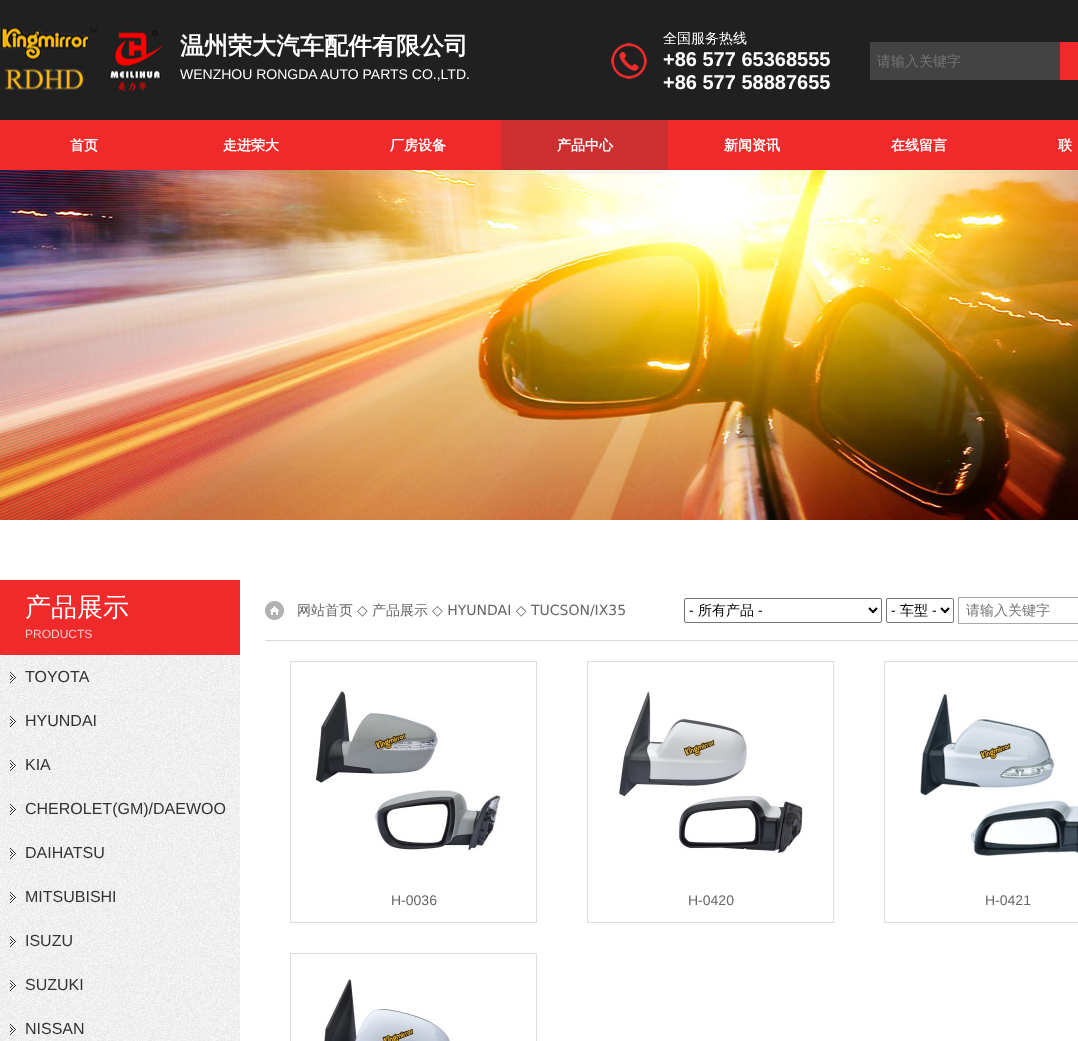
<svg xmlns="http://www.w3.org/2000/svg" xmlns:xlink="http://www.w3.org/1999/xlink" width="1078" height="1041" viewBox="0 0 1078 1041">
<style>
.cls-1{font:bold 24px WenQuanYi Zen Hei;fill:#ffffff}
.cls-2{font:14px Liberation Sans;fill:#ffffff}
.cls-3{font:500 14px WenQuanYi Zen Hei;fill:#ffffff}
.cls-4{font:bold 20px Liberation Sans;fill:#ffffff}
.cls-5{font:500 14px WenQuanYi Zen Hei;fill:#757575}
.cls-6{font:bold 14px WenQuanYi Zen Hei;fill:#ffffff}
.cls-7{font:500 26px WenQuanYi Zen Hei;fill:#ffffff}
.cls-8{font:12px Liberation Sans;fill:#fec9c9}
.cls-9{font:16px Liberation Sans;fill:#333333}
.cls-10{font:500 14px WenQuanYi Zen Hei;fill:#666666}
.cls-11{font:14px DejaVu Sans;fill:#666666}
.cls-12{font:14px Liberation Sans;fill:#000000}
.cls-13{font:500 14px WenQuanYi Zen Hei;fill:#000000}
.cls-14{font:14px Liberation Sans;fill:#666666}
</style>
<rect width="100%" height="100%" fill="#ffffff"/>
<rect fill="#202020" x="0" y="0" width="1078" height="120"/>
<image xlink:href="image0.png" x="0" y="28" width="163" height="65"/>
<image xlink:href="image1.png" x="611" y="43" width="36" height="36"/>
<rect fill="#434343" x="870" y="42" width="190" height="38"/>
<rect fill="#f02a2a" x="1060" y="42" width="18" height="38"/>
<rect fill="#f02a2a" x="0" y="120" width="1078" height="50"/>
<rect fill="#cc2f2f" x="501" y="120" width="167" height="50"/>
<image xlink:href="image2.png" x="0" y="170" width="1078" height="350"/>
<rect fill="#f02a2a" x="0" y="580" width="240" height="75"/>
<image xlink:href="image3.png" x="0" y="655" width="240" height="386"/>
<image xlink:href="image4.png" x="10" y="672" width="6" height="11"/>
<image xlink:href="image5.png" x="10" y="716" width="6" height="11"/>
<image xlink:href="image6.png" x="10" y="760" width="6" height="11"/>
<image xlink:href="image7.png" x="10" y="804" width="6" height="11"/>
<image xlink:href="image8.png" x="10" y="848" width="6" height="11"/>
<image xlink:href="image9.png" x="10" y="892" width="6" height="11"/>
<image xlink:href="image10.png" x="10" y="936" width="6" height="11"/>
<image xlink:href="image11.png" x="10" y="980" width="6" height="11"/>
<image xlink:href="image12.png" x="10" y="1024" width="6" height="11"/>
<image xlink:href="image13.png" x="265" y="601" width="19" height="19"/>
<rect fill="#d9d9d9" x="265" y="640" width="813" height="1"/>
<rect fill="none" stroke="#767676" x="684.5" y="598.5" width="197" height="24" rx="1.5"/>
<path fill="none" stroke="#000000" stroke-width="2" d="M869 608L873 612L877 608"/>
<rect fill="none" stroke="#767676" x="886.5" y="598.5" width="67" height="24" rx="1.5"/>
<path fill="none" stroke="#000000" stroke-width="2" d="M941 608L945 612L949 608"/>
<rect fill="none" stroke="#aaaaaa" x="958.5" y="597.5" width="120" height="26"/>
<rect fill="none" stroke="#dddddd" x="290.5" y="661.5" width="246" height="261"/>
<image xlink:href="image14.png" x="315" y="691" width="186" height="160"/>
<rect fill="none" stroke="#dddddd" x="587.5" y="661.5" width="246" height="261"/>
<image xlink:href="image15.png" x="619" y="691" width="185" height="162"/>
<rect fill="none" stroke="#dddddd" x="884.5" y="661.5" width="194" height="261"/>
<image xlink:href="image16.png" x="920" y="693" width="158" height="164"/>
<rect fill="none" stroke="#dddddd" x="290.5" y="953.5" width="246" height="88"/>
<image xlink:href="image17.png" x="324" y="979" width="127" height="62"/>
<text class="cls-1" x="180" y="54">温州荣大汽车配件有限公司</text>
<text class="cls-2" x="180" y="79">WENZHOU RONGDA AUTO PARTS CO.,LTD.</text>
<text class="cls-3" x="663" y="43">全国服务热线</text>
<text class="cls-4"><tspan x="663" y="66">+86 577 65368555</tspan><tspan x="663" y="89">+86 577 58887655</tspan></text>
<text class="cls-5" x="877" y="66">请输入关键字</text>
<text class="cls-6" x="70" y="150">首页</text>
<text class="cls-6" x="223" y="150">走进荣大</text>
<text class="cls-6" x="390" y="150">厂房设备</text>
<text class="cls-6" x="557" y="150">产品中心</text>
<text class="cls-6" x="724" y="150">新闻资讯</text>
<text class="cls-6" x="891" y="150">在线留言</text>
<text class="cls-6" x="1058" y="150">联</text>
<text class="cls-7" x="25" y="616">产品展示</text>
<text class="cls-8" x="25" y="638">PRODUCTS</text>
<text class="cls-9" x="25" y="682">TOYOTA</text>
<text class="cls-9" x="25" y="726">HYUNDAI</text>
<text class="cls-9" x="25" y="770">KIA</text>
<text class="cls-9" x="25" y="814">CHEROLET(GM)/DAEWOO</text>
<text class="cls-9" x="25" y="858">DAIHATSU</text>
<text class="cls-9" x="25" y="902">MITSUBISHI</text>
<text class="cls-9" x="25" y="946">ISUZU</text>
<text class="cls-9" x="25" y="990">SUZUKI</text>
<text class="cls-9" x="25" y="1034">NISSAN</text>
<text class="cls-10" x="297" y="615">网站首页</text>
<text class="cls-11" x="357" y="615">◇</text>
<text class="cls-10" x="372" y="615">产品展示</text>
<text class="cls-11" x="432" y="615">◇ HYUNDAI ◇ TUCSON/IX35</text>
<text class="cls-12" x="689" y="615">-</text>
<text class="cls-13" x="698" y="615">所有产品</text>
<text class="cls-12" x="758" y="615">-</text>
<text class="cls-12" x="891" y="615">-</text>
<text class="cls-13" x="900" y="615">车型</text>
<text class="cls-12" x="932" y="615">-</text>
<text class="cls-5" x="966" y="615">请输入关键字</text>
<text class="cls-14" x="391" y="905">H-0036</text>
<text class="cls-14" x="688" y="905">H-0420</text>
<text class="cls-14" x="985" y="905">H-0421</text>
</svg>
